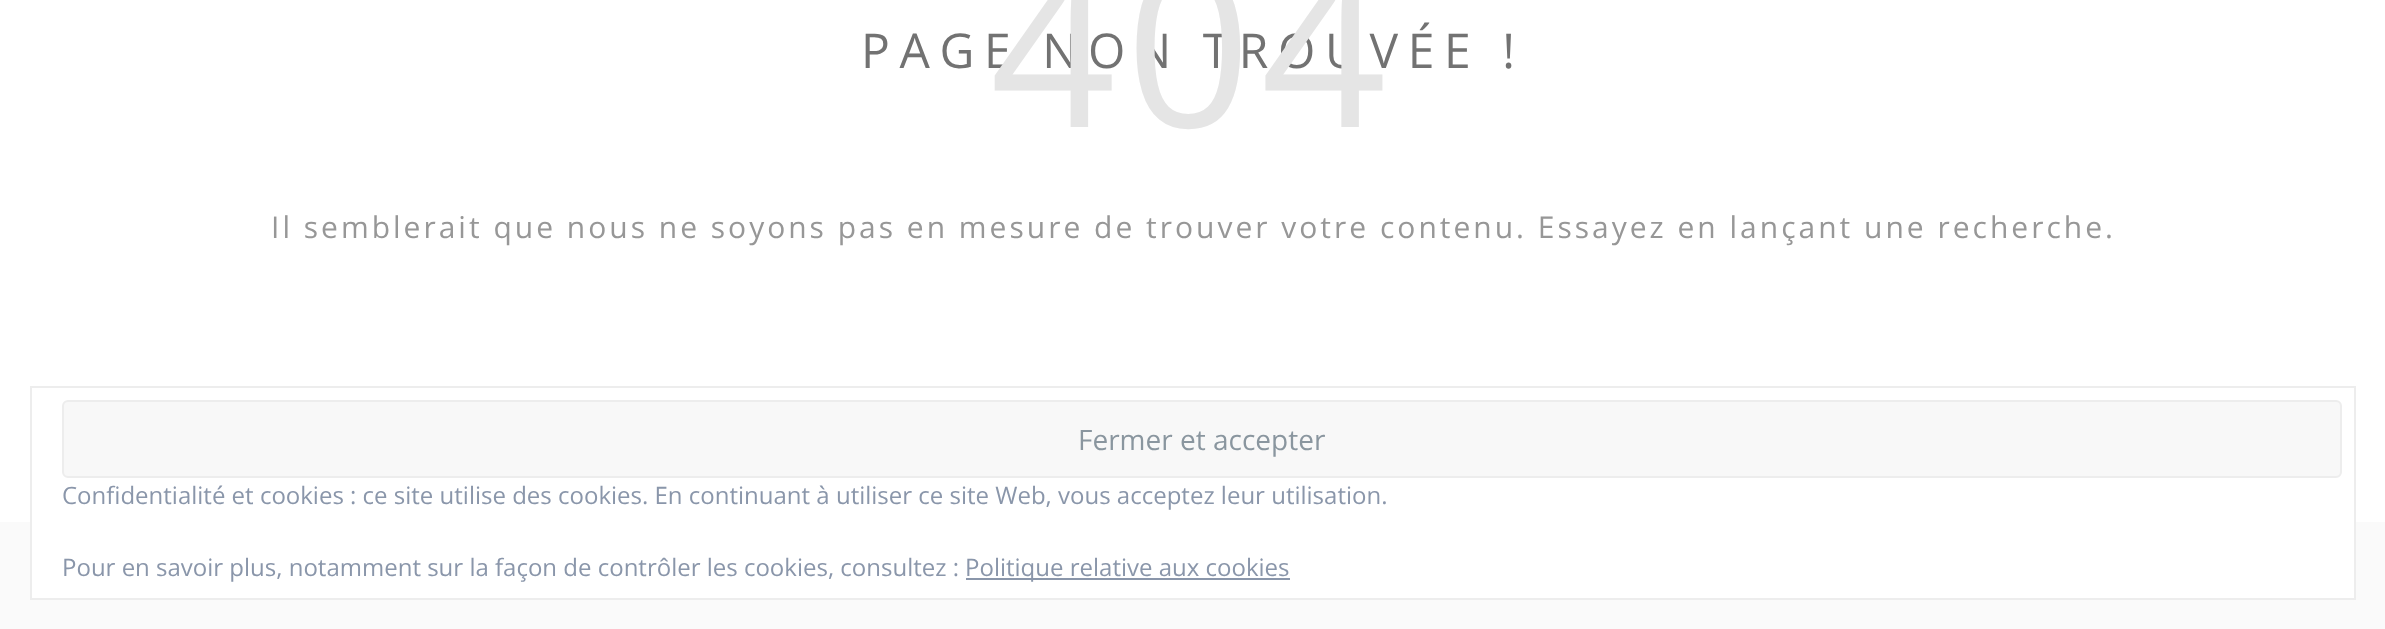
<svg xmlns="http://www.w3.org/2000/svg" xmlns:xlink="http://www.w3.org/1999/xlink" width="2385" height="629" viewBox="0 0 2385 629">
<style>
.cls-1{font:48px Open Sans;letter-spacing:9.6px;fill:#727272}
.cls-2{font:220px Open Sans;letter-spacing:9.6px;fill:#e5e5e5}
.cls-3{font:30px Open Sans;letter-spacing:3px;fill:#979797}
.cls-4{font:28px Open Sans;fill:#8a969f}
.cls-5{font:24px Open Sans;fill:#8a96aa}
</style>
<rect width="100%" height="100%" fill="#ffffff"/>
<rect fill="#fafafa" x="0" y="522" width="2385" height="107"/>
<rect fill="#ffffff" x="32" y="522" width="2322" height="76"/>
<rect fill="none" stroke="#ededed" stroke-width="2" x="31" y="387" width="2324" height="212"/>
<rect fill="#f8f8f8" stroke="#ededed" stroke-width="2" x="63" y="401" width="2278" height="76" rx="5"/>
<rect fill="#8a96aa" x="966" y="578" width="324" height="2"/>
<text class="cls-1" x="861" y="68">PAGE NON TROUVÉE !</text>
<text class="cls-2" x="990" y="127">404</text>
<text class="cls-3" x="271" y="238">Il semblerait que nous ne soyons pas en mesure de trouver votre contenu. Essayez en lançant une recherche.</text>
<text class="cls-4" x="1078" y="450">Fermer et accepter</text>
<text class="cls-5" x="62" y="504">Confidentialité et cookies : ce site utilise des cookies. En continuant à utiliser ce site Web, vous acceptez leur utilisation.</text>
<text class="cls-5" x="62" y="576">Pour en savoir plus, notamment sur la façon de contrôler les cookies, consultez :</text>
<text class="cls-5" x="965" y="576">Politique relative aux cookies</text>
</svg>
